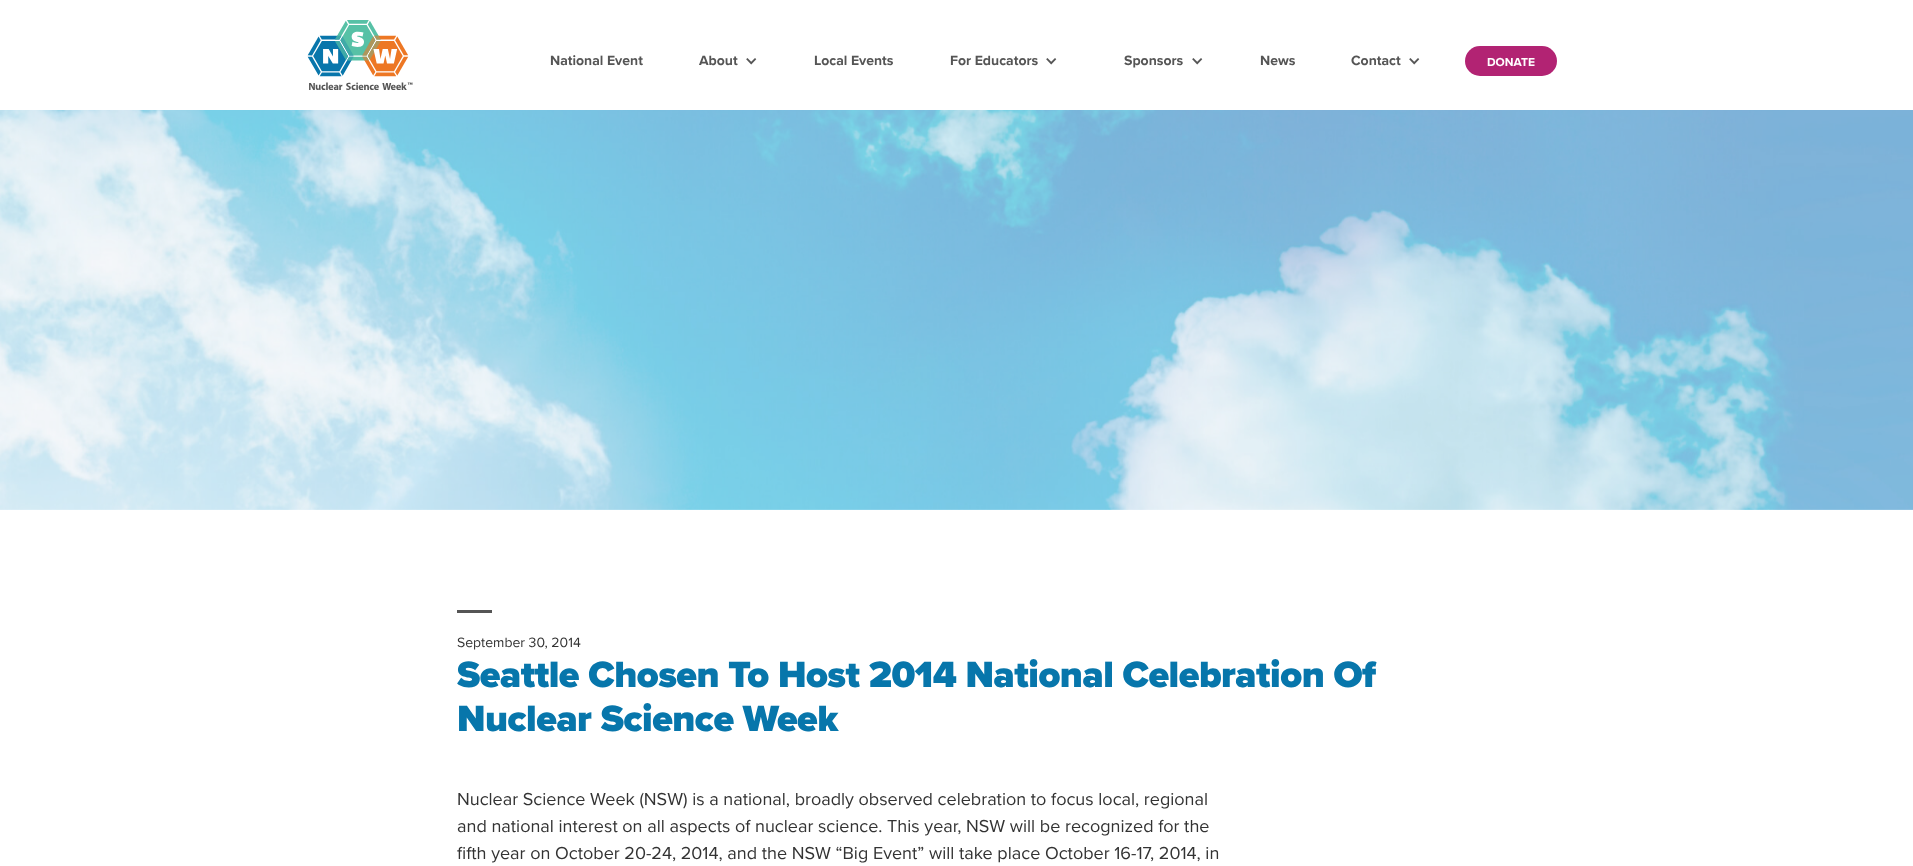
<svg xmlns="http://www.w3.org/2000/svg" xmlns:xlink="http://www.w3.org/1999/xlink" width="1913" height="866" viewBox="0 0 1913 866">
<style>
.cls-1{font:bold 14px Proxima Nova;fill:#555555}
.cls-2{font:bold 12px Proxima Nova;fill:#ffffff}
.cls-3{font:14px Proxima Nova;fill:#333333}
.cls-4{font:900 38px Proxima Nova;letter-spacing:-0.5px;fill:#0776ab}
.cls-5{font:18px Proxima Nova;fill:#333333}
</style>
<rect width="100%" height="100%" fill="#ffffff"/>
<image xlink:href="image0.png" x="307" y="20" width="106" height="70"/>
<image xlink:href="image1.png" x="746" y="58" width="11" height="7"/>
<image xlink:href="image1.png" x="1046" y="58" width="11" height="7"/>
<image xlink:href="image1.png" x="1192" y="58" width="11" height="7"/>
<image xlink:href="image1.png" x="1409" y="58" width="11" height="7"/>
<rect fill="#b22373" x="1465" y="46" width="92" height="30" rx="15"/>
<image xlink:href="image2.png" x="0" y="110" width="1913" height="400"/>
<rect fill="#555555" x="457" y="610" width="35" height="3"/>
<text class="cls-1" x="550" y="65">National Event</text>
<text class="cls-1" x="699" y="65">About</text>
<text class="cls-1" x="814" y="65">Local Events</text>
<text class="cls-1" x="950" y="65">For Educators</text>
<text class="cls-1" x="1124" y="65">Sponsors</text>
<text class="cls-1" x="1260" y="65">News</text>
<text class="cls-1" x="1351" y="65">Contact</text>
<text class="cls-2" x="1487" y="66">DONATE</text>
<text class="cls-3" x="457" y="647">September 30, 2014</text>
<text class="cls-4"><tspan x="457" y="687">Seattle Chosen To Host 2014 National Celebration Of</tspan><tspan x="457" y="731">Nuclear Science Week</tspan></text>
<text class="cls-5"><tspan x="457" y="805">Nuclear Science Week (NSW) is a national, broadly observed celebration to focus local, regional</tspan><tspan x="457" y="832">and national interest on all aspects of nuclear science. This year, NSW will be recognized for the</tspan><tspan x="457" y="859">fifth year on October 20-24, 2014, and the NSW “Big Event” will take place October 16-17, 2014, in</tspan></text>
</svg>
